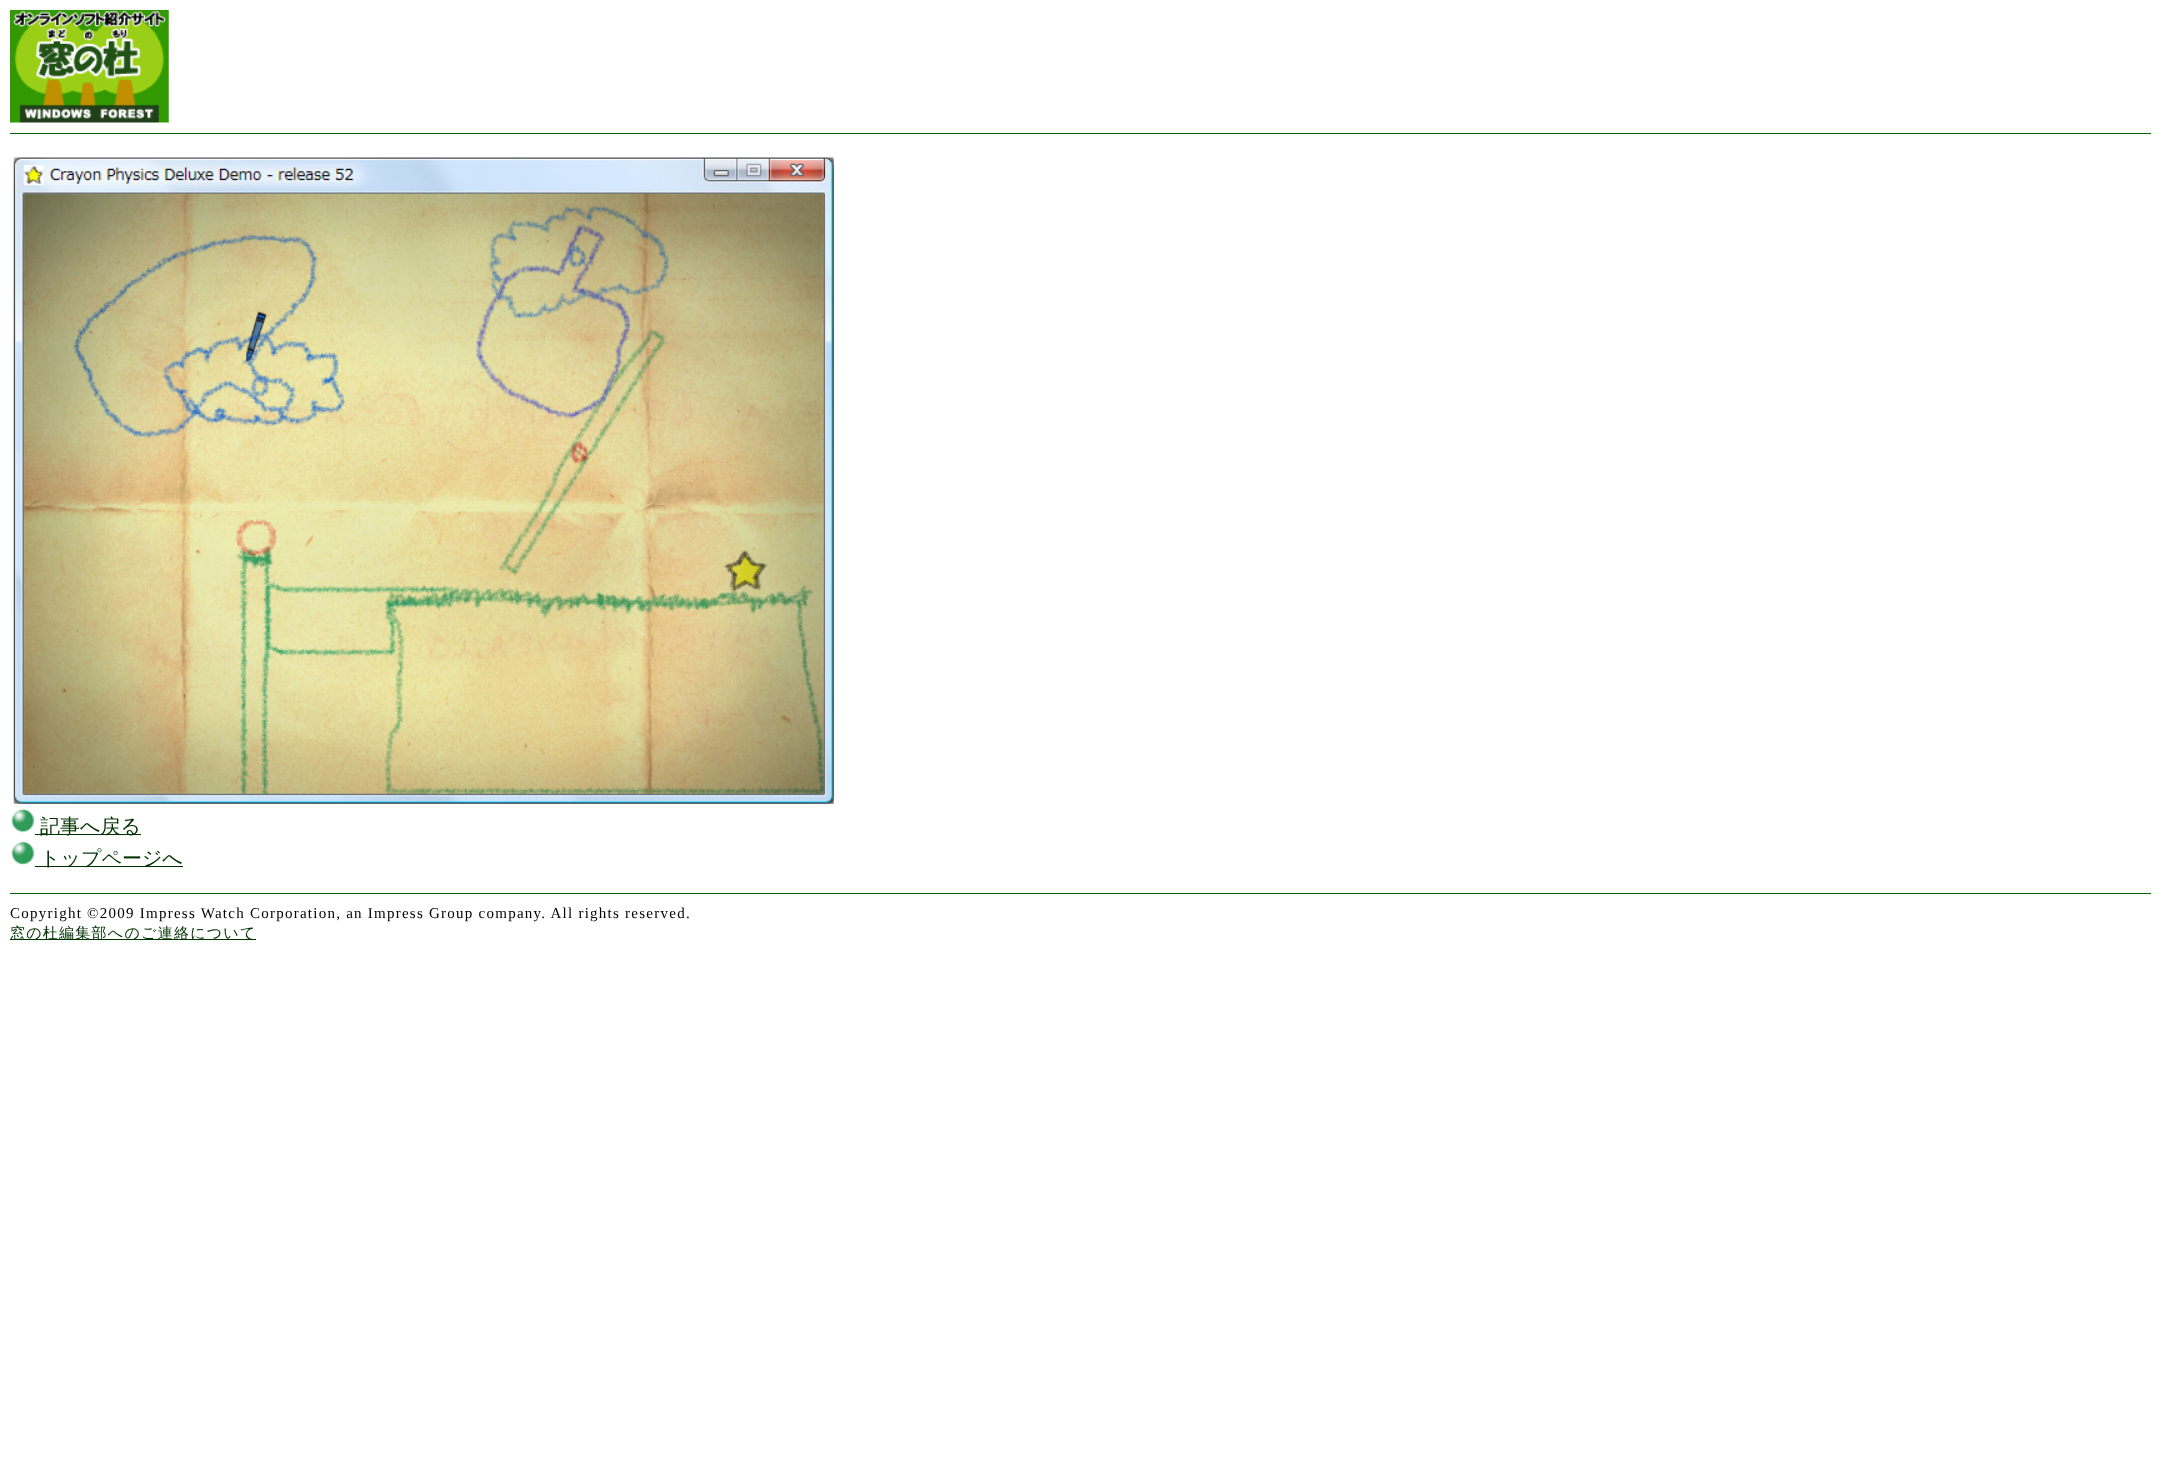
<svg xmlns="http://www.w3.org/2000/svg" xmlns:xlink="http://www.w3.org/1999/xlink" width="2161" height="1478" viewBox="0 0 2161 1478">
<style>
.cls-1{font:500 20px WenQuanYi Zen Hei;fill:#003300}
.cls-2{font:15px Liberation Serif;letter-spacing:1.25px;fill:#000000}
.cls-3{font:500 15px WenQuanYi Zen Hei;letter-spacing:1.25px;fill:#003300}
</style>
<rect width="100%" height="100%" fill="#ffffff"/>
<image xlink:href="image0.png" x="10" y="10" width="159" height="113"/>
<rect fill="#006600" x="10" y="133" width="2141" height="1"/>
<image xlink:href="image1.png" x="13" y="157" width="821" height="647"/>
<image xlink:href="image2.png" x="11" y="808" width="24" height="25"/>
<rect fill="#003300" x="35" y="834" width="106" height="1"/>
<image xlink:href="image3.png" x="11" y="841" width="24" height="24"/>
<rect fill="#003300" x="35" y="866" width="148" height="1"/>
<rect fill="#006600" x="10" y="893" width="2141" height="1"/>
<rect fill="#003300" x="10" y="939" width="246" height="1"/>
<text class="cls-1"><tspan x="40" y="833">記事へ戻る</tspan><tspan x="40" y="865">トップページへ</tspan></text>
<text class="cls-2" x="10" y="918">Copyright ©2009 Impress Watch Corporation, an Impress Group company. All rights reserved.</text>
<text class="cls-3" x="10" y="938">窓の杜編集部へのご連絡について</text>
</svg>
